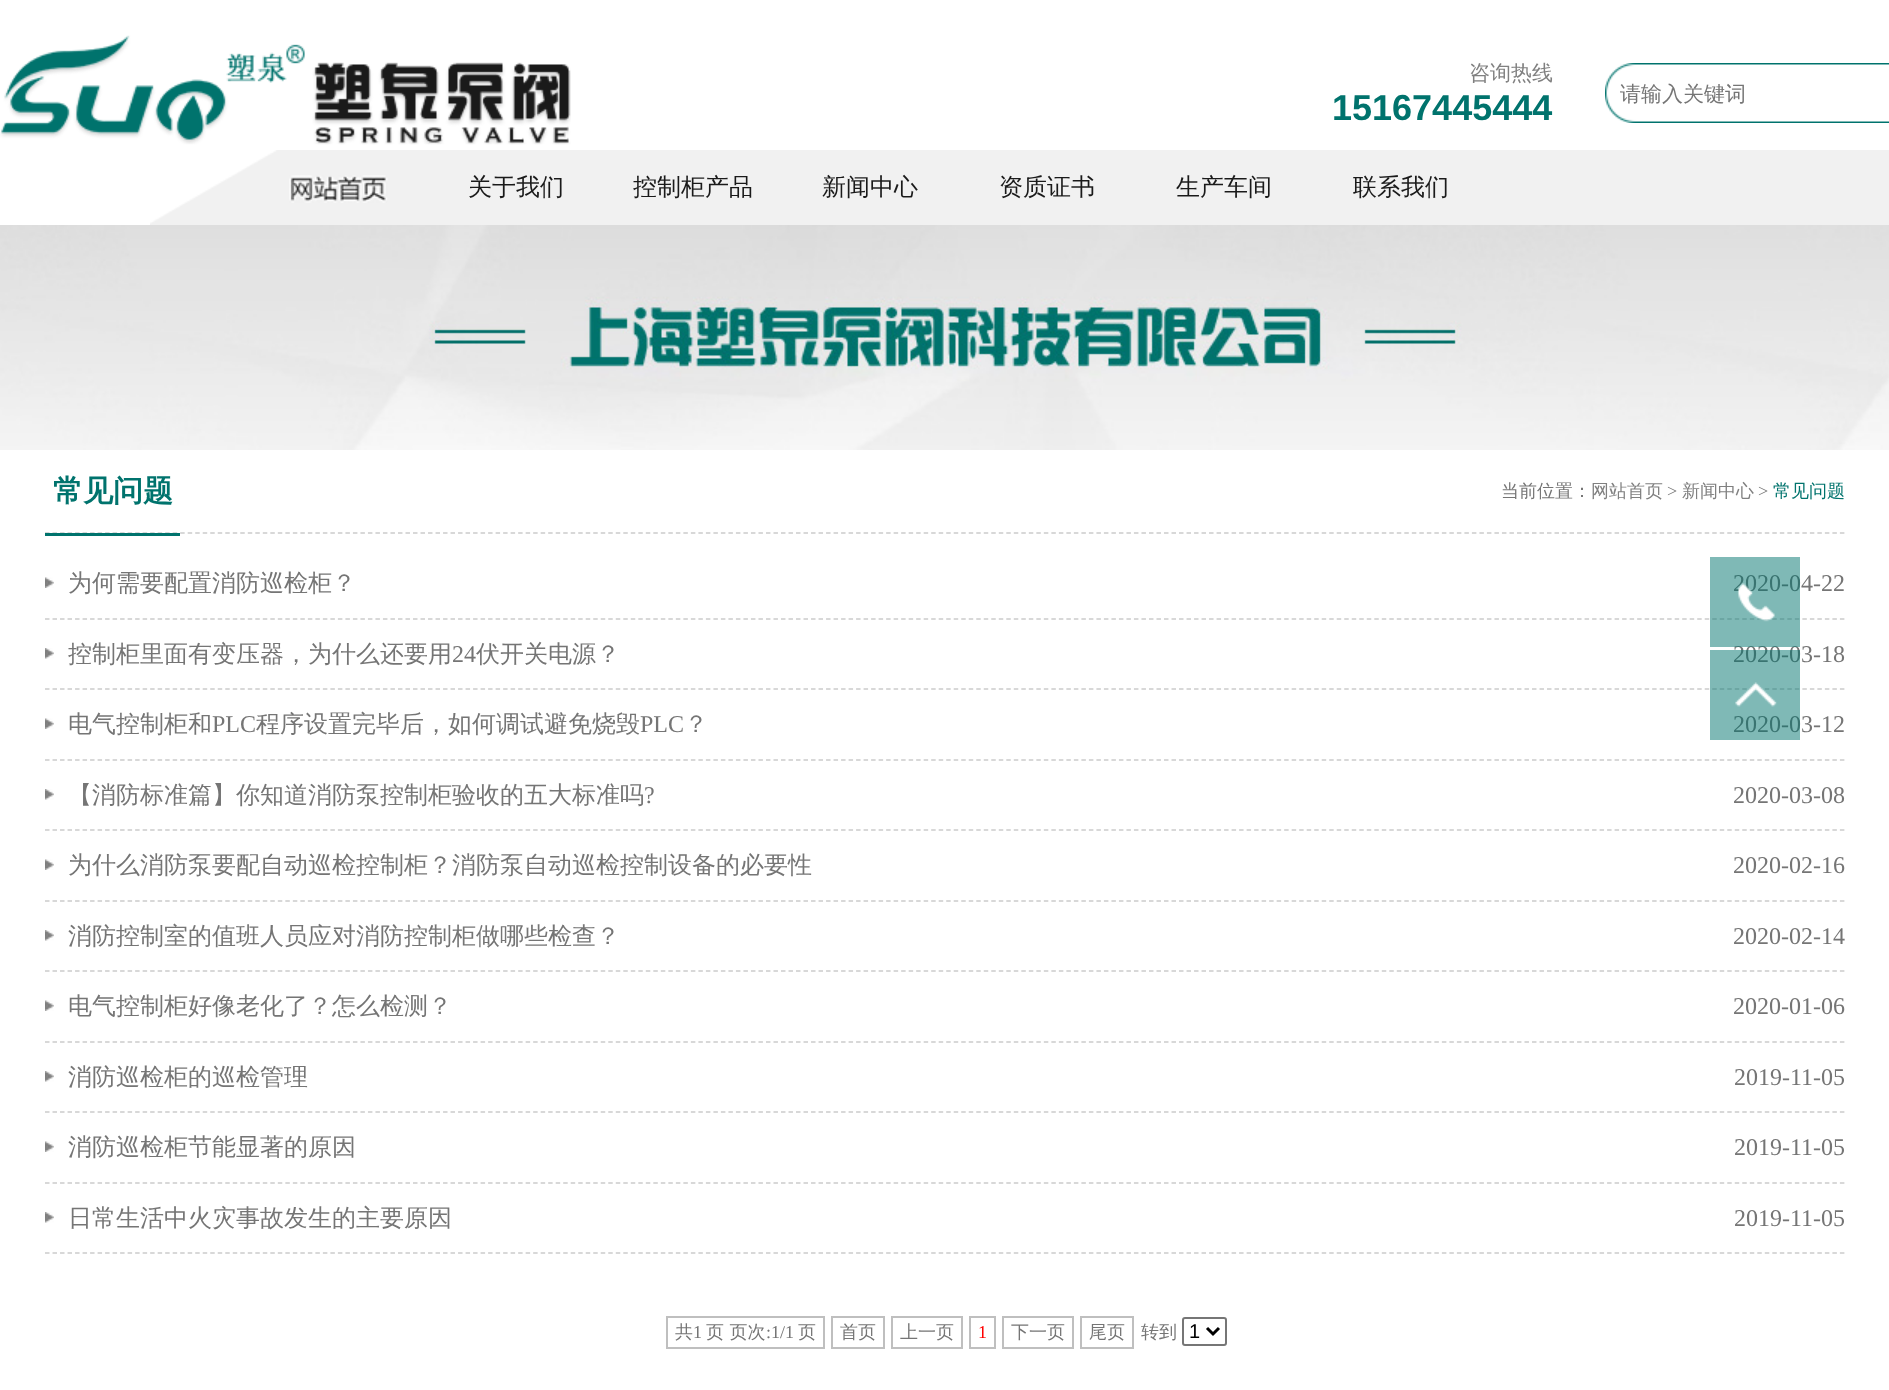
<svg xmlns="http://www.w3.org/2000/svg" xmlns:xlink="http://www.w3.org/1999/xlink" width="1889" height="1390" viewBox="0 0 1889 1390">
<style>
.cls-1{font:500 21px WenQuanYi Zen Hei;fill:#808080}
.cls-2{font:bold 36px Liberation Sans;fill:#00736d}
.cls-3{font:500 21px WenQuanYi Zen Hei;fill:#757575}
.cls-4{font:500 24px WenQuanYi Zen Hei;fill:#1a1a1a}
.cls-5{font:bold 30px WenQuanYi Zen Hei;fill:#00736d}
.cls-6{font:500 18px WenQuanYi Zen Hei;fill:#757575}
.cls-7{font:500 18px WenQuanYi Zen Hei;fill:#808080}
.cls-8{font:18px Liberation Serif;fill:#757575}
.cls-9{font:500 18px WenQuanYi Zen Hei;fill:#00736d}
.cls-10{font:500 24px WenQuanYi Zen Hei;fill:#757575}
.cls-11{font:24px Liberation Serif;fill:#757575}
.cls-12{font:18px Liberation Serif;fill:#ff0000}
.cls-13{font:20px Liberation Sans;fill:#000000}
</style>
<rect width="100%" height="100%" fill="#ffffff"/>
<image xlink:href="image0.png" x="0" y="35" width="571" height="110"/>
<image xlink:href="image1.png" x="1605" y="63" width="284" height="60"/>
<image xlink:href="image2.png" x="150" y="150" width="1739" height="75"/>
<image xlink:href="image3.png" x="289" y="175" width="99" height="28"/>
<image xlink:href="image4.png" x="0" y="225" width="1889" height="225"/>
<path fill="none" stroke="#cccccc" stroke-width="1.5" stroke-dasharray="4.5 3.01" d="M45 533H1845"/>
<rect fill="#00736d" x="45" y="533" width="135" height="3"/>
<path fill="none" stroke="#cccccc" stroke-width="1.5" stroke-dasharray="4.5 3.01" d="M45 619H1845"/>
<image xlink:href="image7.png" x="45" y="577" width="9" height="11"/>
<path fill="none" stroke="#cccccc" stroke-width="1.5" stroke-dasharray="4.5 3.01" d="M45 689H1845"/>
<image xlink:href="image8.png" x="45" y="648" width="9" height="11"/>
<path fill="none" stroke="#cccccc" stroke-width="1.5" stroke-dasharray="4.5 3.01" d="M45 760H1845"/>
<image xlink:href="image7.png" x="45" y="718" width="9" height="11"/>
<path fill="none" stroke="#cccccc" stroke-width="1.5" stroke-dasharray="4.5 3.01" d="M45 830H1845"/>
<image xlink:href="image8.png" x="45" y="789" width="9" height="11"/>
<path fill="none" stroke="#cccccc" stroke-width="1.5" stroke-dasharray="4.5 3.01" d="M45 901H1845"/>
<image xlink:href="image7.png" x="45" y="859" width="9" height="11"/>
<path fill="none" stroke="#cccccc" stroke-width="1.5" stroke-dasharray="4.5 3.01" d="M45 971H1845"/>
<image xlink:href="image8.png" x="45" y="930" width="9" height="11"/>
<path fill="none" stroke="#cccccc" stroke-width="1.5" stroke-dasharray="4.5 3.01" d="M45 1042H1845"/>
<image xlink:href="image7.png" x="45" y="1000" width="9" height="11"/>
<path fill="none" stroke="#cccccc" stroke-width="1.5" stroke-dasharray="4.5 3.01" d="M45 1112H1845"/>
<image xlink:href="image8.png" x="45" y="1071" width="9" height="11"/>
<path fill="none" stroke="#cccccc" stroke-width="1.5" stroke-dasharray="4.5 3.01" d="M45 1183H1845"/>
<image xlink:href="image7.png" x="45" y="1141" width="9" height="11"/>
<path fill="none" stroke="#cccccc" stroke-width="1.5" stroke-dasharray="4.5 3.01" d="M45 1253H1845"/>
<image xlink:href="image8.png" x="45" y="1212" width="9" height="11"/>
<rect fill="none" stroke="#bfbfbf" stroke-width="2" x="667" y="1317" width="157" height="31"/>
<rect fill="none" stroke="#bfbfbf" stroke-width="2" x="832" y="1317" width="52" height="31"/>
<rect fill="none" stroke="#bfbfbf" stroke-width="2" x="892" y="1317" width="70" height="31"/>
<rect fill="none" stroke="#bfbfbf" stroke-width="2" x="970" y="1317" width="25" height="31"/>
<rect fill="none" stroke="#bfbfbf" stroke-width="2" x="1003" y="1317" width="70" height="31"/>
<rect fill="none" stroke="#bfbfbf" stroke-width="2" x="1081" y="1317" width="52" height="31"/>
<rect fill="none" stroke="#767676" stroke-width="2" x="1183" y="1318" width="43" height="27" rx="2"/>
<path fill="none" stroke="#000000" stroke-width="3" d="M1207 1328L1213 1334L1219 1328"/>
<text class="cls-1" x="1469" y="80">咨询热线</text>
<text class="cls-2" x="1332" y="120">15167445444</text>
<text class="cls-3" x="1620" y="101">请输入关键词</text>
<text class="cls-4" x="468" y="195">关于我们</text>
<text class="cls-4" x="633" y="195">控制柜产品</text>
<text class="cls-4" x="822" y="195">新闻中心</text>
<text class="cls-4" x="999" y="195">资质证书</text>
<text class="cls-4" x="1176" y="195">生产车间</text>
<text class="cls-4" x="1353" y="195">联系我们</text>
<text class="cls-5" x="53" y="501">常见问题</text>
<text class="cls-6" x="1501" y="497">当前位置：</text>
<text class="cls-7" x="1591" y="497">网站首页</text>
<text class="cls-8" x="1667" y="497">&gt;</text>
<text class="cls-7" x="1682" y="497">新闻中心</text>
<text class="cls-8" x="1758" y="497">&gt;</text>
<text class="cls-9" x="1773" y="497">常见问题</text>
<text class="cls-10" x="68" y="591">为何需要配置消防巡检柜？</text>
<text class="cls-11" x="1733" y="591">2020-04-22</text>
<text class="cls-10" x="68" y="662">控制柜里面有变压器，为什么还要用</text>
<text class="cls-11" x="452" y="662">24</text>
<text class="cls-10" x="476" y="662">伏开关电源？</text>
<text class="cls-11" x="1733" y="662">2020-03-18</text>
<rect fill="#00736d" fill-opacity="0.5" x="1710" y="557" width="90" height="90"/>
<image xlink:href="image5.png" x="1737" y="583" width="38" height="39"/>
<text class="cls-10" x="68" y="732">电气控制柜和</text>
<text class="cls-11" x="212" y="732">PLC</text>
<text class="cls-10" x="256" y="732">程序设置完毕后，如何调试避免烧毁</text>
<text class="cls-11" x="640" y="732">PLC</text>
<text class="cls-10" x="684" y="732">？</text>
<text class="cls-11" x="1733" y="732">2020-03-12</text>
<rect fill="#00736d" fill-opacity="0.5" x="1710" y="650" width="90" height="90"/>
<image xlink:href="image6.png" x="1735" y="682" width="42" height="25"/>
<text class="cls-10" x="68" y="803">【消防标准篇】你知道消防泵控制柜验收的五大标准吗</text>
<text class="cls-11" x="644" y="803">?</text>
<text class="cls-11" x="1733" y="803">2020-03-08</text>
<text class="cls-10" x="68" y="873">为什么消防泵要配自动巡检控制柜？消防泵自动巡检控制设备的必要性</text>
<text class="cls-11" x="1733" y="873">2020-02-16</text>
<text class="cls-10" x="68" y="944">消防控制室的值班人员应对消防控制柜做哪些检查？</text>
<text class="cls-11" x="1733" y="944">2020-02-14</text>
<text class="cls-10" x="68" y="1014">电气控制柜好像老化了？怎么检测？</text>
<text class="cls-11" x="1733" y="1014">2020-01-06</text>
<text class="cls-10" x="68" y="1085">消防巡检柜的巡检管理</text>
<text class="cls-11" x="1734" y="1085">2019-11-05</text>
<text class="cls-10" x="68" y="1155">消防巡检柜节能显著的原因</text>
<text class="cls-11" x="1734" y="1155">2019-11-05</text>
<text class="cls-10" x="68" y="1226">日常生活中火灾事故发生的主要原因</text>
<text class="cls-11" x="1734" y="1226">2019-11-05</text>
<text class="cls-6" x="675" y="1338">共</text>
<text class="cls-8" x="693" y="1338">1</text>
<text class="cls-6" x="706" y="1338">页 页次</text>
<text class="cls-8" x="766" y="1338">:1/1</text>
<text class="cls-6" x="798" y="1338">页</text>
<text class="cls-6" x="840" y="1338">首页</text>
<text class="cls-6" x="900" y="1338">上一页</text>
<text class="cls-12" x="978" y="1338">1</text>
<text class="cls-6" x="1011" y="1338">下一页</text>
<text class="cls-6" x="1089" y="1338">尾页</text>
<text class="cls-6" x="1141" y="1338">转到</text>
<text class="cls-13" x="1189" y="1338">1</text>
</svg>
